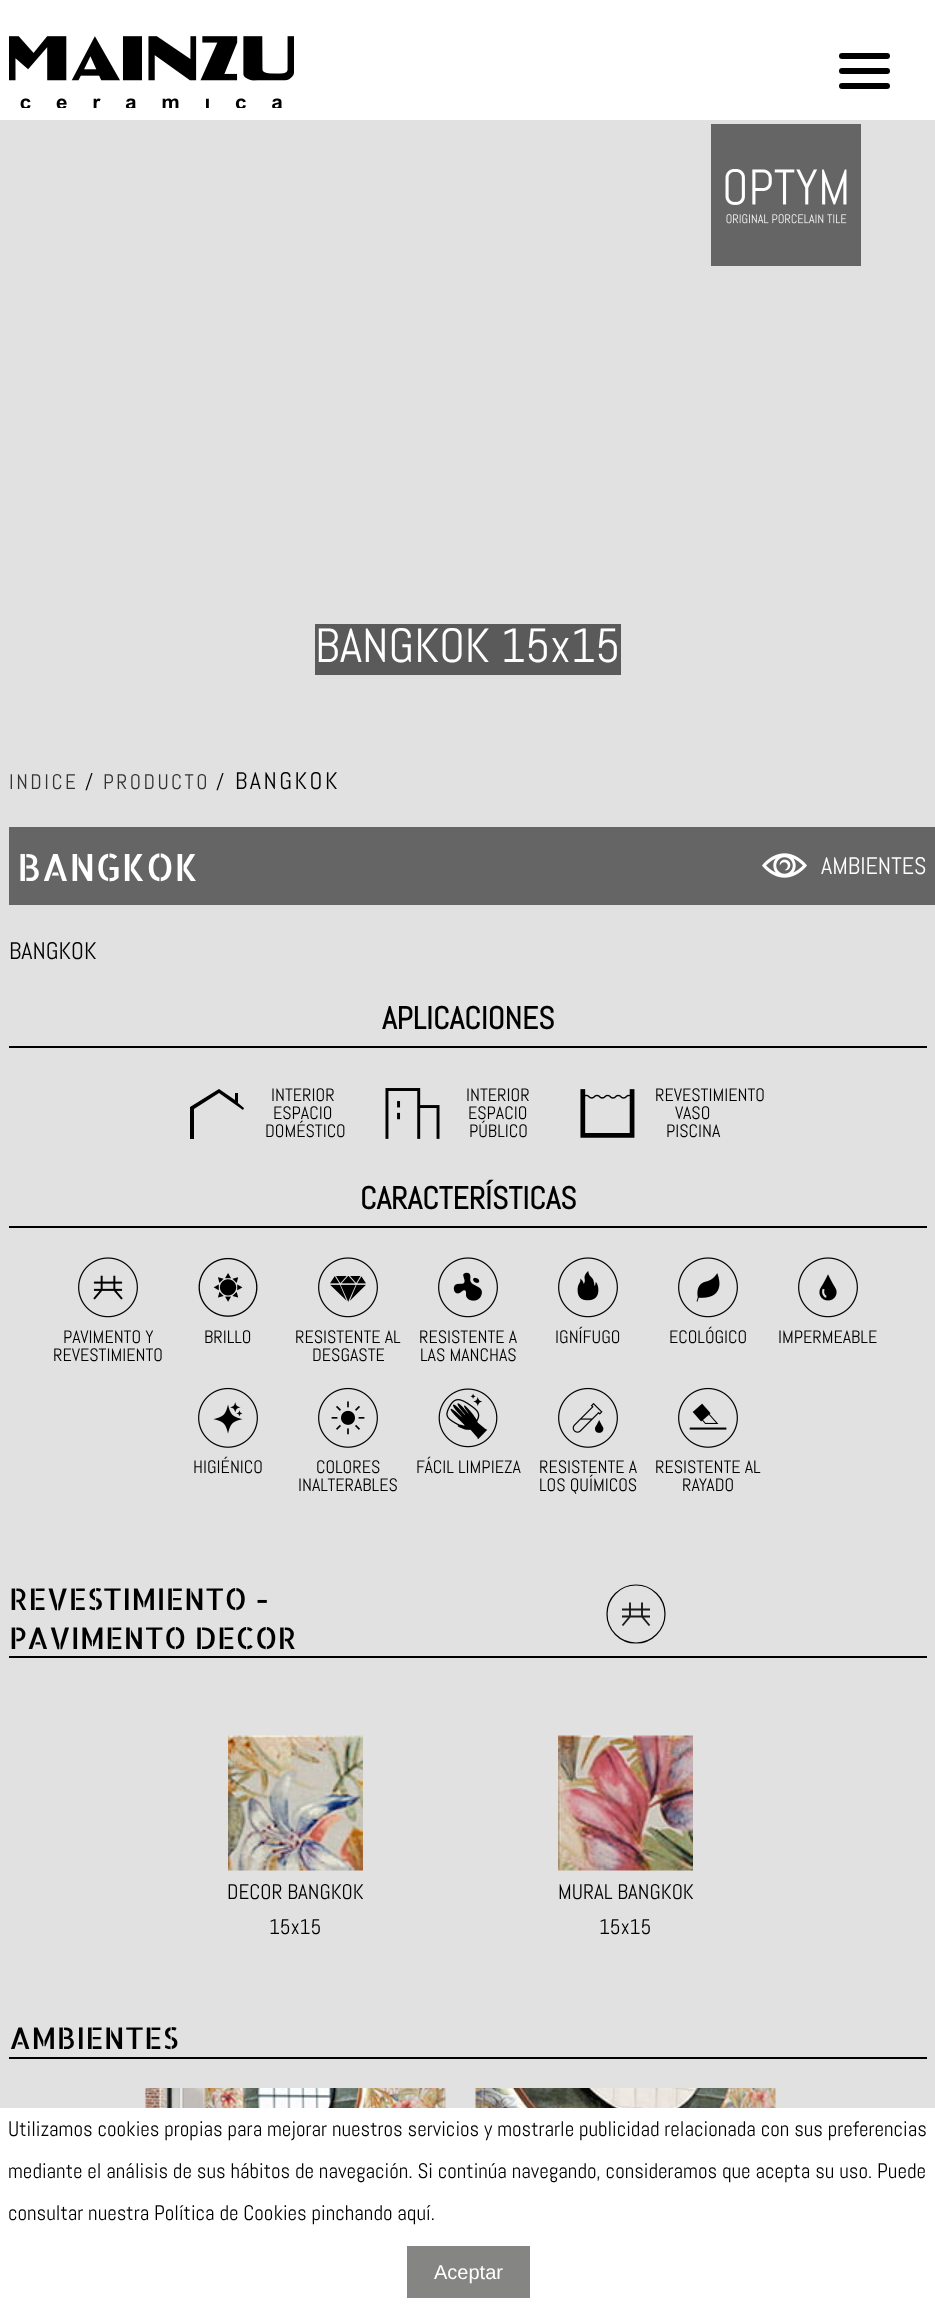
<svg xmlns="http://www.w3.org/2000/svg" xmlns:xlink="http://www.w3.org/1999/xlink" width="935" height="2309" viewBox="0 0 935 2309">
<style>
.cls-1{font:48px Abel;fill:#ffffff}
.cls-2{font:21px Abel;letter-spacing:2.5px;fill:#333333}
.cls-3{font:21px Abel;letter-spacing:2.5px;fill:#000000}
.cls-4{font:24px Abel;letter-spacing:2.5px;fill:#000000}
.cls-5{font:37.5px Allerta Stencil;fill:#ffffff}
.cls-6{font:24px Abel;fill:#ffffff}
.cls-7{font:24px Abel;fill:#000000}
.cls-8{font:bold 31.5px Abel;fill:#000000}
.cls-9{font:18px Abel;fill:#000000}
.cls-10{font:30px Allerta Stencil;fill:#000000}
.cls-11{font:21px Abel;fill:#000000}
.cls-12{font:20px Liberation Sans;fill:#ffffff}
</style>
<rect width="100%" height="100%" fill="#e2e1e1"/>
<rect fill="#ffffff" x="0" y="0" width="935" height="120"/>
<image xlink:href="image0.png" x="9" y="36" width="285" height="72"/>
<rect fill="#000000" x="839" y="53" width="51" height="6" rx="3"/>
<rect fill="#000000" x="839" y="68" width="51" height="6" rx="3"/>
<rect fill="#000000" x="839" y="83" width="51" height="6" rx="3"/>
<rect fill="#666565" x="711" y="124" width="150" height="142"/>
<image xlink:href="image1.png" x="725" y="169" width="122" height="55"/>
<rect fill="#5a5a5a" x="315" y="624" width="306" height="51"/>
<rect fill="#666565" x="9" y="827" width="926" height="78"/>
<image xlink:href="image2.png" x="762" y="853" width="45" height="25"/>
<rect fill="#000000" x="9" y="1046" width="918" height="2"/>
<path fill="#000000" d="M238 1103V1093H235V1100L219 1089L190 1107V1139H194V1109L219 1093L243 1110L244 1108Z"/>
<image xlink:href="image3.png" x="385" y="1088" width="55" height="51"/>
<image xlink:href="image4.png" x="580" y="1089" width="55" height="49"/>
<rect fill="#000000" x="9" y="1226" width="918" height="2"/>
<image xlink:href="image5.png" x="78" y="1257" width="60" height="61"/>
<image xlink:href="image6.png" x="198" y="1257" width="60" height="60"/>
<image xlink:href="image7.png" x="318" y="1257" width="60" height="61"/>
<image xlink:href="image8.png" x="438" y="1257" width="60" height="61"/>
<image xlink:href="image9.png" x="558" y="1257" width="60" height="61"/>
<image xlink:href="image10.png" x="678" y="1257" width="60" height="61"/>
<image xlink:href="image11.png" x="798" y="1257" width="60" height="61"/>
<image xlink:href="image12.png" x="198" y="1387" width="60" height="61"/>
<image xlink:href="image13.png" x="318" y="1387" width="60" height="61"/>
<image xlink:href="image14.png" x="438" y="1388" width="60" height="60"/>
<image xlink:href="image15.png" x="558" y="1387" width="60" height="61"/>
<image xlink:href="image16.png" x="678" y="1387" width="60" height="61"/>
<rect fill="#000000" x="9" y="1656" width="918" height="2"/>
<circle fill="none" stroke="#000000" stroke-width="1.2" cx="636" cy="1614" r="29"/>
<path fill="none" stroke="#1a1a18" stroke-width="1.9" d="M622 1616.5H650M622 1609.5H650M630 1602.5V1616.5L622.5 1625.5M642 1602.5V1616.5L649.5 1625.5"/>
<image xlink:href="image17.png" x="228" y="1735" width="135" height="136"/>
<image xlink:href="image18.png" x="558" y="1735" width="135" height="136"/>
<rect fill="#000000" x="9" y="2057" width="918" height="2"/>
<image xlink:href="image19.png" x="145" y="2088" width="301" height="20"/>
<image xlink:href="image20.png" x="475" y="2088" width="301" height="20"/>
<rect fill="#ffffff" x="0" y="2108" width="935" height="201"/>
<rect fill="#858584" x="407" y="2246" width="123" height="52"/>
<text class="cls-1" x="315" y="662">BANGKOK 15x15</text>
<text class="cls-2" x="9" y="789">INDICE</text>
<text class="cls-3" x="85" y="789">/</text>
<text class="cls-2" x="103" y="789">PRODUCTO</text>
<text class="cls-3" x="216" y="789">/</text>
<text class="cls-4" x="235" y="789">BANGKOK</text>
<text class="cls-5" x="17" y="881">BANGKOK</text>
<text class="cls-6" x="821" y="874">AMBIENTES</text>
<text class="cls-7" x="9" y="959">BANGKOK</text>
<text class="cls-8" x="382" y="1029">APLICACIONES</text>
<text class="cls-9" x="271" y="1101">INTERIOR</text>
<text class="cls-9" x="273" y="1119">ESPACIO</text>
<text class="cls-9" x="265" y="1137">DOMÉSTICO</text>
<text class="cls-9" x="466" y="1101">INTERIOR</text>
<text class="cls-9" x="468" y="1119">ESPACIO</text>
<text class="cls-9" x="469" y="1137">PÚBLICO</text>
<text class="cls-9" x="655" y="1101">REVESTIMIENTO</text>
<text class="cls-9" x="675" y="1119">VASO</text>
<text class="cls-9" x="666" y="1137">PISCINA</text>
<text class="cls-8" x="360" y="1209">CARACTERÍSTICAS</text>
<text class="cls-9" x="63" y="1343">PAVIMENTO Y</text>
<text class="cls-9" x="53" y="1361">REVESTIMIENTO</text>
<text class="cls-9" x="204" y="1343">BRILLO</text>
<text class="cls-9" x="295" y="1343">RESISTENTE AL</text>
<text class="cls-9" x="312" y="1361">DESGASTE</text>
<text class="cls-9" x="419" y="1343">RESISTENTE A</text>
<text class="cls-9" x="420" y="1361">LAS MANCHAS</text>
<text class="cls-9" x="555" y="1343">IGNÍFUGO</text>
<text class="cls-9" x="669" y="1343">ECOLÓGICO</text>
<text class="cls-9" x="778" y="1343">IMPERMEABLE</text>
<text class="cls-9" x="193" y="1473">HIGIÉNICO</text>
<text class="cls-9" x="316" y="1473">COLORES</text>
<text class="cls-9" x="298" y="1491">INALTERABLES</text>
<text class="cls-9" x="416" y="1473">FÁCIL LIMPIEZA</text>
<text class="cls-9"><tspan x="539" y="1473">RESISTENTE A</tspan><tspan x="539" y="1491">LOS QUÍMICOS</tspan></text>
<text class="cls-9" x="655" y="1473">RESISTENTE AL</text>
<text class="cls-9" x="682" y="1491">RAYADO</text>
<text class="cls-10"><tspan x="9" y="1610">REVESTIMIENTO -</tspan><tspan x="9" y="1649">PAVIMENTO DECOR</tspan></text>
<text class="cls-11" x="227" y="1899">DECOR BANGKOK</text>
<text class="cls-11" x="269" y="1934">15x15</text>
<text class="cls-11" x="558" y="1899">MURAL BANGKOK</text>
<text class="cls-11" x="599" y="1934">15x15</text>
<text class="cls-10" x="9" y="2049">AMBIENTES</text>
<text class="cls-11" x="8" y="2136">Utilizamos cookies propias para mejorar nuestros servicios y mostrarle publicidad relacionada con sus preferencias</text>
<text class="cls-11" x="8" y="2178">mediante el análisis de sus hábitos de navegación. Si continúa navegando, consideramos que acepta su uso. Puede</text>
<text class="cls-11" x="8" y="2220">consultar nuestra Política de Cookies pinchando aquí.</text>
<text class="cls-12" x="434" y="2279">Aceptar</text>
</svg>
